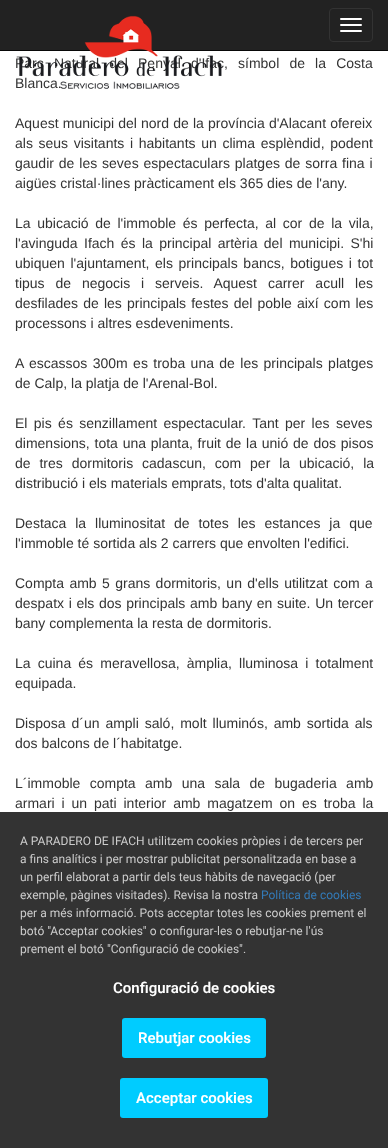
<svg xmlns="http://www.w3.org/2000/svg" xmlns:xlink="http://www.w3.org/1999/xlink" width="388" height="1148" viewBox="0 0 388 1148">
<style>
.cls-1{font:14px Liberation Sans;fill:#333333}
.cls-2{font:12px Roboto;fill:#cccccc}
.cls-3{font:12px Roboto;fill:#337ab7}
.cls-4{font:600 15px Roboto;fill:#ffffff}
</style>
<rect width="100%" height="100%" fill="#ffffff"/>
<rect fill="#222222" x="0" y="0" width="388" height="50"/>
<rect fill="#080808" x="0" y="50" width="388" height="1"/>
<rect fill="none" stroke="#333333" x="329.5" y="8.5" width="43" height="33" rx="3.5"/>
<rect fill="#ffffff" x="340" y="18" width="22" height="2" rx="1"/>
<rect fill="#ffffff" x="340" y="24" width="22" height="2" rx="1"/>
<rect fill="#ffffff" x="340" y="30" width="22" height="2" rx="1"/>
<rect fill="#333333" x="0" y="812" width="388" height="336"/>
<rect fill="#00ccff" x="122" y="1018" width="144" height="40" rx="3"/>
<rect fill="#00ccff" x="120" y="1078" width="148" height="40" rx="3"/>
<text class="cls-1"><tspan x="15" y="68" word-spacing="6.25">Parc Natural del Penyal d'Ifac, símbol de la Costa</tspan><tspan x="15" y="88">Blanca.</tspan></text>
<image xlink:href="image0.png" x="16" y="15" width="206" height="74"/>
<text class="cls-1"><tspan x="15" y="128" word-spacing="0.25">Aquest municipi del nord de la província d'Alacant ofereix</tspan><tspan x="15" y="148" word-spacing="1.75">als seus visitants i habitants un clima esplèndid, podent</tspan><tspan x="15" y="168" word-spacing="1">gaudir de les seves espectaculars platges de sorra fina i</tspan><tspan x="15" y="188">aigües cristal·lines pràcticament els 365 dies de l'any.</tspan></text>
<text class="cls-1"><tspan x="15" y="228" word-spacing="2.75">La ubicació de l'immoble és perfecta, al cor de la vila,</tspan><tspan x="15" y="248" word-spacing="2.5">l'avinguda Ifach és la principal artèria del municipi. S'hi</tspan><tspan x="15" y="268" word-spacing="1.75">ubiquen l'ajuntament, els principals bancs, botigues i tot</tspan><tspan x="15" y="288" word-spacing="7">tipus de negocis i serveis. Aquest carrer acull les</tspan><tspan x="15" y="308" word-spacing="1.25">desfilades de les principals festes del poble així com les</tspan><tspan x="15" y="328">processons i altres esdeveniments.</tspan></text>
<text class="cls-1"><tspan x="15" y="368" word-spacing="1.5">A escassos 300m es troba una de les principals platges</tspan><tspan x="15" y="388">de Calp, la platja de l'Arenal-Bol.</tspan></text>
<text class="cls-1"><tspan x="15" y="428" word-spacing="2.5">El pis és senzillament espectacular. Tant per les seves</tspan><tspan x="15" y="448" word-spacing="0.9">dimensions, tota una planta, fruit de la unió de dos pisos</tspan><tspan x="15" y="468" word-spacing="5">de tres dormitoris cadascun, com per la ubicació, la</tspan><tspan x="15" y="488">distribució i els materials emprats, tots d'alta qualitat.</tspan></text>
<text class="cls-1"><tspan x="15" y="528" word-spacing="5">Destaca la lluminositat de totes les estances ja que</tspan><tspan x="15" y="548">l'immoble té sortida als 2 carrers que envolten l'edifici.</tspan></text>
<text class="cls-1"><tspan x="15" y="588" word-spacing="1.5">Compta amb 5 grans dormitoris, un d'ells utilitzat com a</tspan><tspan x="15" y="608" word-spacing="0.75">despatx i els dos principals amb bany en suite. Un tercer</tspan><tspan x="15" y="628">bany complementa la resta de dormitoris.</tspan></text>
<text class="cls-1"><tspan x="15" y="668" word-spacing="3.25">La cuina és meravellosa, àmplia, lluminosa i totalment</tspan><tspan x="15" y="688">equipada.</tspan></text>
<text class="cls-1"><tspan x="15" y="728" word-spacing="2">Disposa d´un ampli saló, molt lluminós, amb sortida als</tspan><tspan x="15" y="748">dos balcons de l´habitatge.</tspan></text>
<text class="cls-1"><tspan x="15" y="788" word-spacing="5.5">L´immoble compta amb una sala de bugaderia amb</tspan><tspan x="15" y="808" word-spacing="3">armari i un pati interior amb magatzem on es troba la</tspan></text>
<text class="cls-2"><tspan x="20" y="845">A PARADERO DE IFACH utilitzem cookies pròpies i de tercers per</tspan><tspan x="20" y="863">a fins analítics i per mostrar publicitat personalitzada en base a</tspan><tspan x="20" y="881">un perfil elaborat a partir dels teus hàbits de navegació (per</tspan><tspan x="20" y="899">exemple, pàgines visitades). Revisa la nostra</tspan></text>
<text class="cls-3" x="261" y="899">Política de cookies</text>
<text class="cls-2"><tspan x="20" y="917">per a més informació. Pots acceptar totes les cookies prement el</tspan><tspan x="20" y="935">botó "Acceptar cookies" o configurar-les o rebutjar-ne l'ús</tspan><tspan x="20" y="953">prement el botó "Configuració de cookies".</tspan></text>
<text class="cls-4" x="113" y="993">Configuració de cookies</text>
<text class="cls-4" x="138" y="1043">Rebutjar cookies</text>
<text class="cls-4" x="136" y="1103">Acceptar cookies</text>
</svg>
